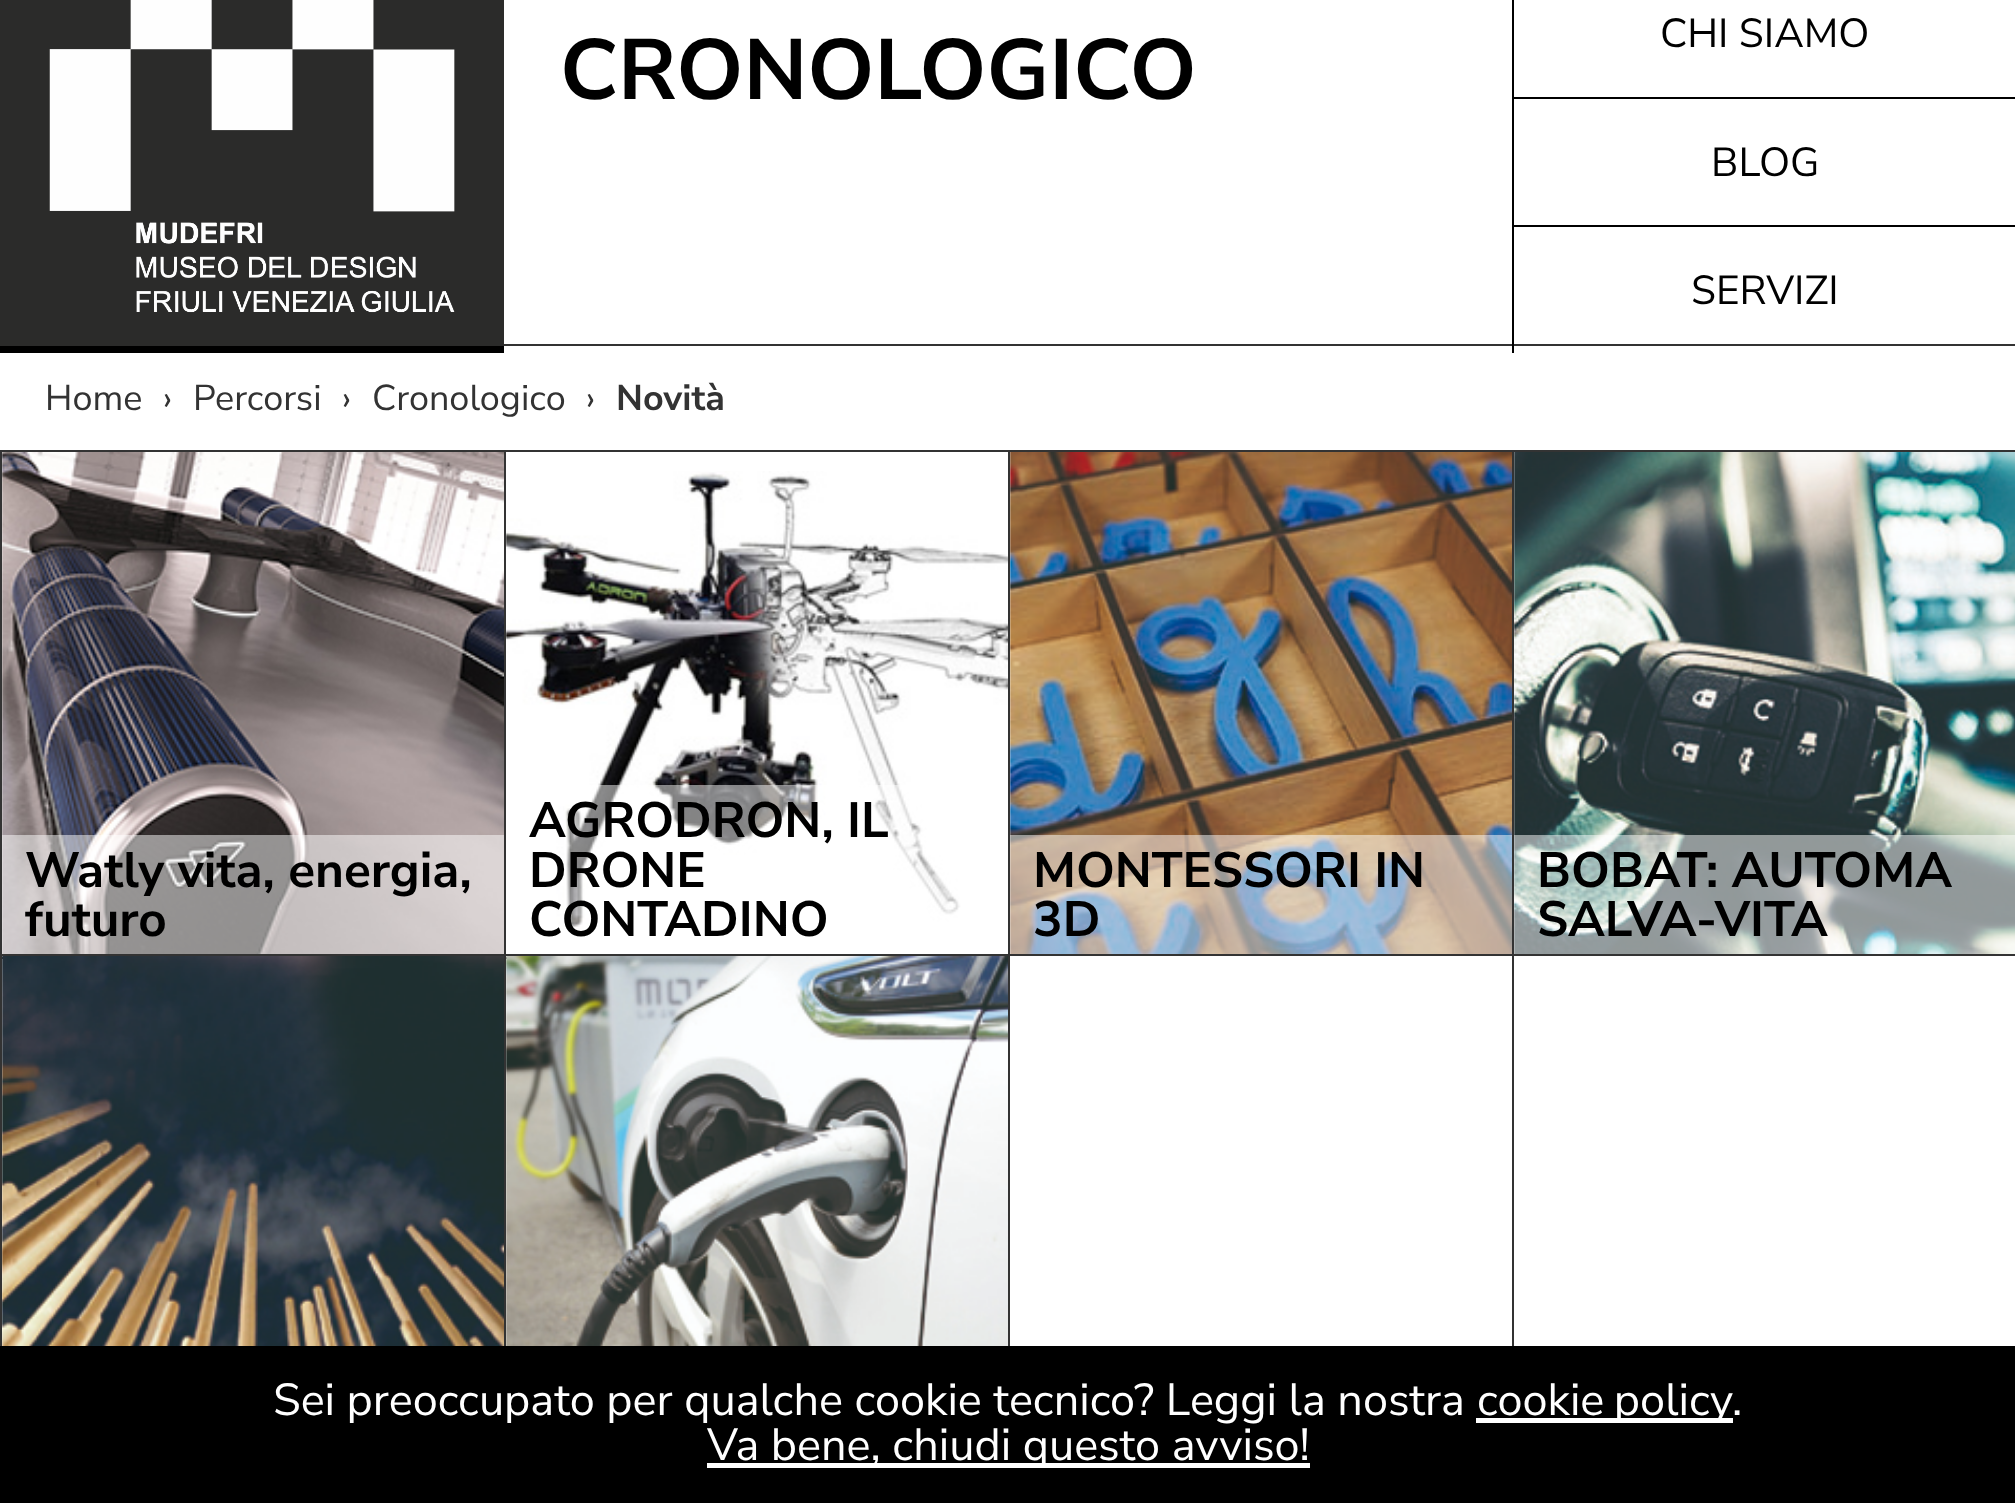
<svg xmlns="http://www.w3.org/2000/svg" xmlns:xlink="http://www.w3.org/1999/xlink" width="2015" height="1503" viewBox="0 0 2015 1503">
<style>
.cls-1{font:bold 85.5px Nunito Sans;fill:#000000}
.cls-2{font:40.5px Nunito Sans;fill:#000000}
.cls-3{font:36px Nunito Sans;fill:#333333}
.cls-4{font:bold 36px Nunito Sans;fill:#333333}
.cls-5{font:bold 49.5px Nunito Sans;fill:#000000}
.cls-6{font:45px Nunito Sans;fill:#ffffff}
</style>
<rect width="100%" height="100%" fill="#ffffff"/>
<rect fill="#333333" x="504" y="344" width="1511" height="2"/>
<rect fill="#000000" x="0" y="346" width="504" height="7"/>
<image xlink:href="image0.png" x="0" y="0" width="504" height="346"/>
<rect fill="#000000" x="1512" y="0" width="2" height="353"/>
<rect fill="#000000" x="1514" y="97" width="501" height="2"/>
<rect fill="#000000" x="1514" y="225" width="501" height="2"/>
<image xlink:href="image1.png" x="2" y="452" width="502" height="502"/>
<rect fill="none" stroke="#333333" stroke-width="2" x="1" y="451" width="504" height="507"/>
<rect fill="#ffffff" fill-opacity="0.5" x="2" y="835" width="502" height="119"/>
<image xlink:href="image2.png" x="506" y="471" width="502" height="459"/>
<rect fill="none" stroke="#333333" stroke-width="2" x="505" y="451" width="504" height="507"/>
<rect fill="#ffffff" fill-opacity="0.5" x="564" y="785" width="397" height="145"/>
<image xlink:href="image3.png" x="1010" y="452" width="502" height="502"/>
<rect fill="none" stroke="#333333" stroke-width="2" x="1009" y="451" width="504" height="507"/>
<rect fill="#ffffff" fill-opacity="0.5" x="1010" y="835" width="502" height="119"/>
<image xlink:href="image4.png" x="1514" y="452" width="501" height="502"/>
<rect fill="none" stroke="#333333" stroke-width="2" x="1513" y="451" width="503" height="507"/>
<rect fill="#ffffff" fill-opacity="0.5" x="1514" y="835" width="501" height="119"/>
<image xlink:href="image5.png" x="2" y="956" width="502" height="390"/>
<rect fill="none" stroke="#333333" stroke-width="2" x="1" y="955" width="504" height="518"/>
<image xlink:href="image6.png" x="506" y="956" width="502" height="390"/>
<rect fill="none" stroke="#333333" stroke-width="2" x="505" y="955" width="504" height="518"/>
<rect fill="#ffffff" x="1010" y="957" width="502" height="2"/>
<rect fill="none" stroke="#333333" stroke-width="2" x="1009" y="955" width="504" height="518"/>
<rect fill="#ffffff" x="1514" y="957" width="501" height="2"/>
<rect fill="none" stroke="#333333" stroke-width="2" x="1513" y="955" width="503" height="518"/>
<rect fill="#000000" x="0" y="1346" width="2015" height="157"/>
<rect fill="#ffffff" x="1476" y="1418" width="257" height="5"/>
<rect fill="#ffffff" x="707" y="1463" width="603" height="5"/>
<text class="cls-1" x="560" y="99">CRONOLOGICO</text>
<text class="cls-2" x="1660" y="47">CHI SIAMO</text>
<text class="cls-2" x="1711" y="176">BLOG</text>
<text class="cls-2" x="1691" y="304">SERVIZI</text>
<text class="cls-3" x="45" y="410">Home</text>
<text class="cls-3" x="163" y="410">›</text>
<text class="cls-3" x="193" y="410">Percorsi</text>
<text class="cls-3" x="342" y="410">›</text>
<text class="cls-3" x="372" y="410">Cronologico</text>
<text class="cls-3" x="586" y="410">›</text>
<text class="cls-4" x="616" y="410">Novità</text>
<text class="cls-5"><tspan x="25" y="887">Watly vita, energia,</tspan><tspan x="25" y="936">futuro</tspan></text>
<text class="cls-5"><tspan x="529" y="837">AGRODRON, IL</tspan><tspan x="529" y="887">DRONE</tspan><tspan x="529" y="936">CONTADINO</tspan></text>
<text class="cls-5"><tspan x="1033" y="887">MONTESSORI IN</tspan><tspan x="1033" y="936">3D</tspan></text>
<text class="cls-5"><tspan x="1537" y="887">BOBAT: AUTOMA</tspan><tspan x="1537" y="936">SALVA-VITA</tspan></text>
<text class="cls-6" x="273" y="1415">Sei preoccupato per qualche cookie tecnico? Leggi la nostra</text>
<text class="cls-6" x="1477" y="1415" word-spacing="-2">cookie policy</text>
<text class="cls-6" x="1732" y="1415">.</text>
<text class="cls-6" x="707" y="1460">Va bene, chiudi questo avviso!</text>
</svg>
